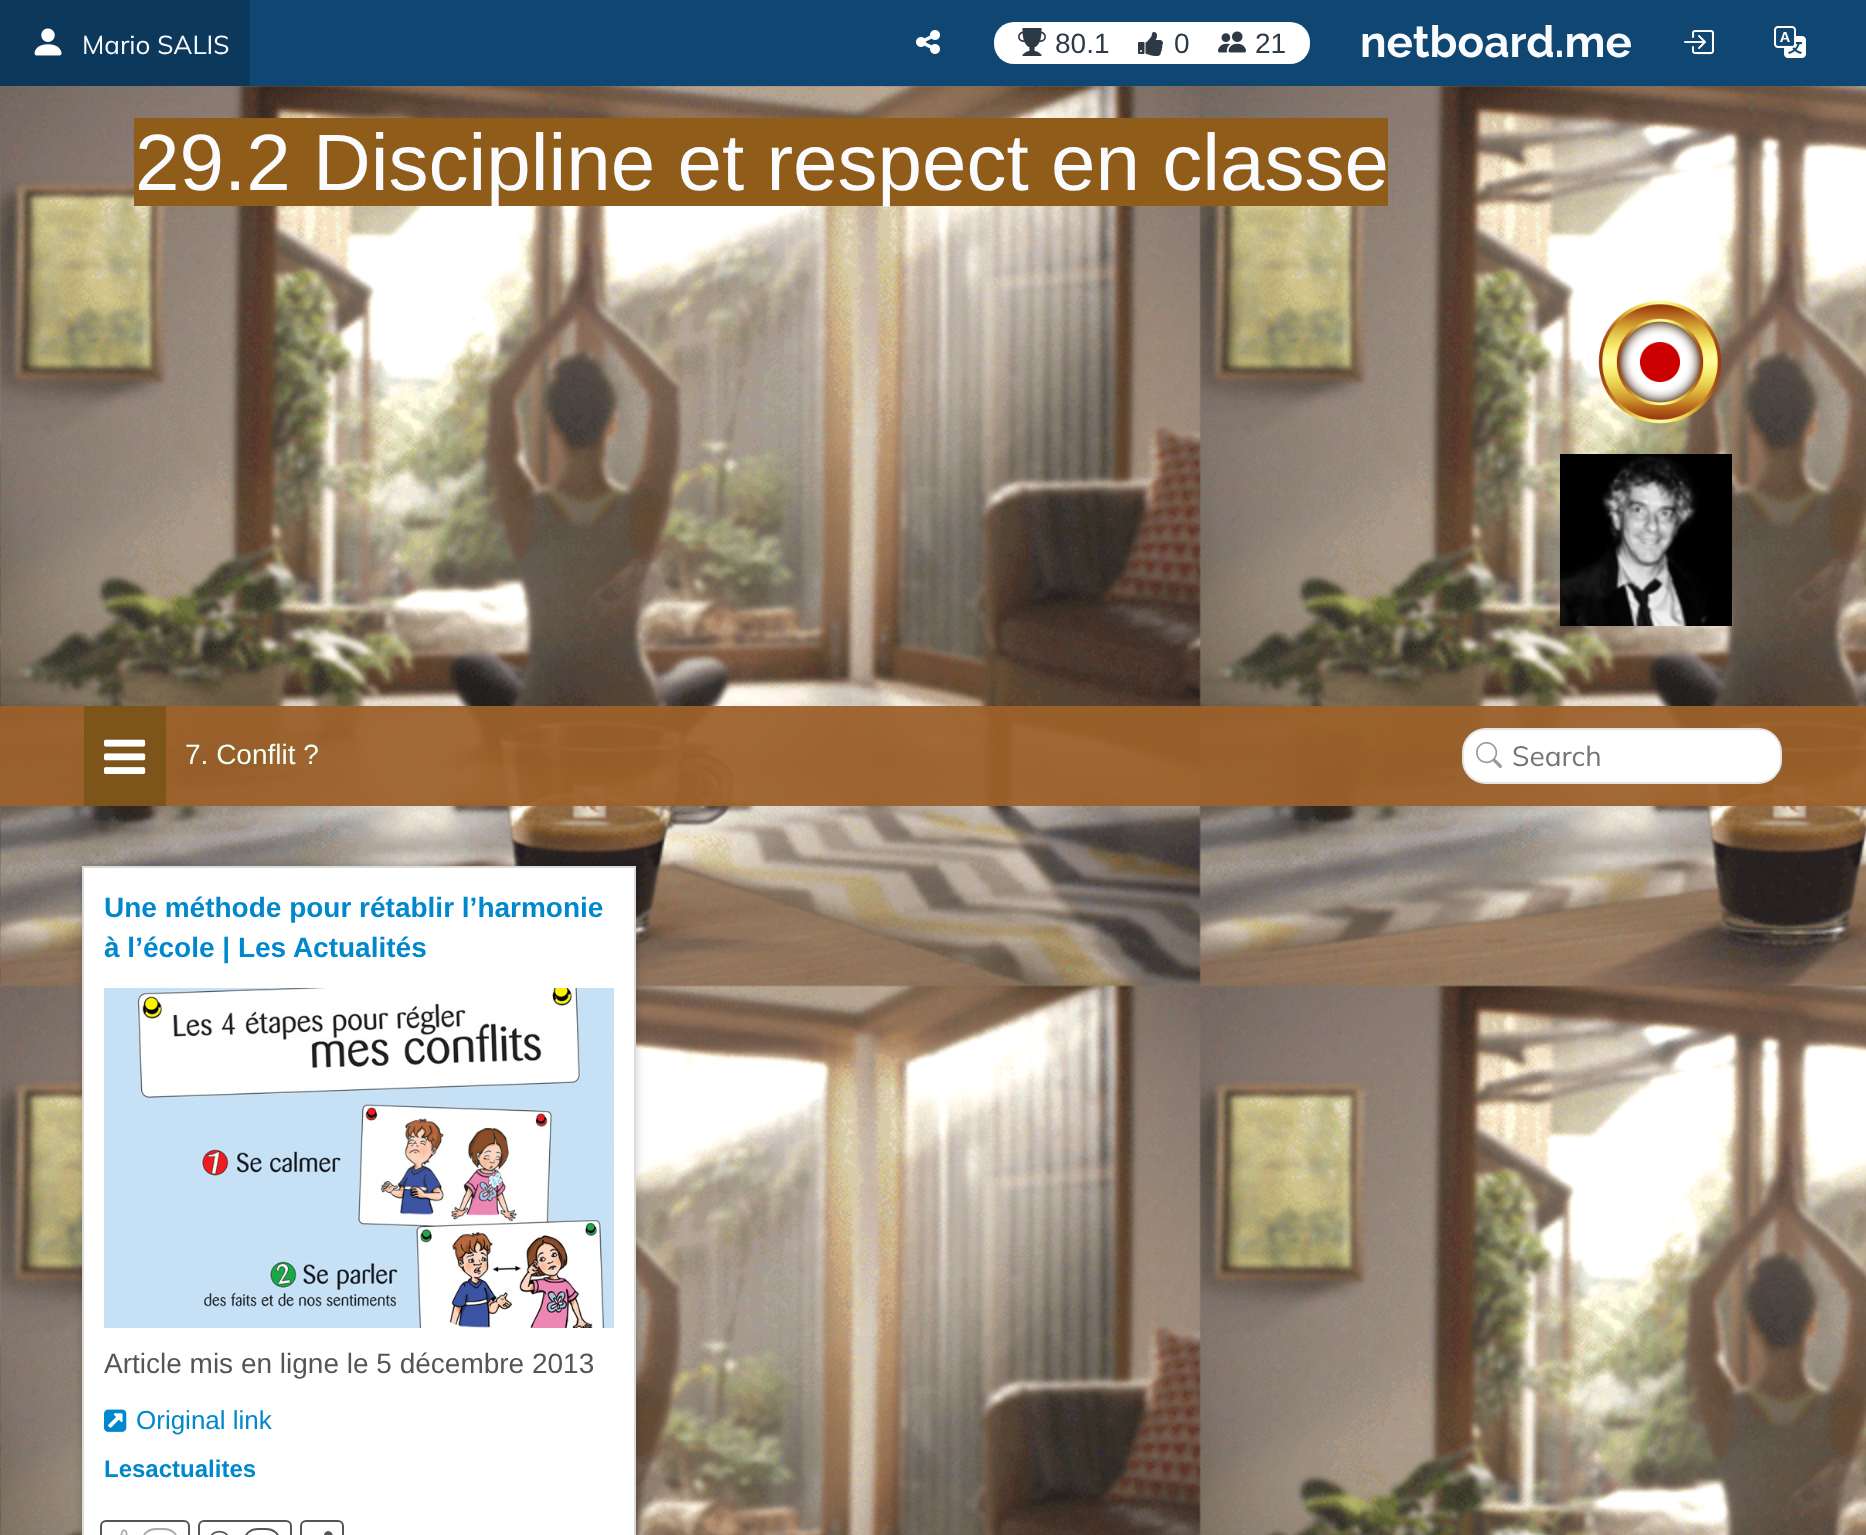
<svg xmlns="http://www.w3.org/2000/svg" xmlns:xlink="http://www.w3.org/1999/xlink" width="1866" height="1535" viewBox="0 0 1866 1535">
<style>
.cls-1{font:26px Mulish;fill:#fafbff}
.cls-2{font:28px Liberation Sans;fill:#2d3945}
.cls-3{font:bold 44px Raleway;fill:#fafbff}
.cls-4{font:80px Liberation Sans;fill:#fafbff}
.cls-5{font:28px Liberation Sans;fill:#f1fff5}
.cls-6{font:28px Mulish;fill:#757575}
.cls-7{font:bold 28px Liberation Sans;fill:#0088cc}
.cls-8{font:28px Liberation Sans;fill:#555555}
.cls-9{font:26px Liberation Sans;fill:#0088cc}
.cls-10{font:bold 24px Liberation Sans;fill:#0088cc}
</style>
<rect width="100%" height="100%" fill="#ffffff"/>
<rect fill="#0f4672" x="250" y="0" width="1616" height="86"/>
<rect fill="#0c385b" x="0" y="0" width="250" height="86"/>
<image xlink:href="image0.png" x="34" y="28" width="28" height="28"/>
<image xlink:href="image1.png" x="916" y="30" width="24" height="24"/>
<rect fill="#ffffff" x="994" y="22" width="316" height="42" rx="20"/>
<image xlink:href="image2.png" x="1018" y="28" width="28" height="28"/>
<image xlink:href="image3.png" x="1138" y="32" width="25" height="24"/>
<image xlink:href="image4.png" x="1218" y="31" width="28" height="22"/>
<image xlink:href="image5.png" x="1684" y="30" width="30" height="25"/>
<image xlink:href="image6.png" x="1774" y="26" width="32" height="32"/>
<image xlink:href="image7.png" x="0" y="86" width="1866" height="1449"/>
<rect fill="#8f5c19" x="134" y="118" width="1254" height="88"/>
<image xlink:href="image8.png" x="1598" y="300" width="124" height="124"/>
<image xlink:href="image9.png" x="1560" y="454" width="172" height="172"/>
<rect fill="#9c612a" fill-opacity="0.94" x="0" y="706" width="1866" height="100"/>
<rect fill="#7d551a" x="84" y="706" width="82" height="100"/>
<image xlink:href="image10.png" x="104" y="739" width="42" height="35"/>
<rect fill="#ffffff" x="1462" y="728" width="320" height="56" rx="24"/>
<rect fill="none" stroke="#000000" stroke-opacity="0.1" stroke-width="2" x="1463" y="729" width="318" height="54" rx="23"/>
<image xlink:href="image11.png" x="1476" y="742" width="26" height="26"/>
<rect fill="#000000" fill-opacity="0.2" filter="blur(5px)" x="82" y="866" width="554" height="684"/>
<rect fill="#ffffff" stroke="#dbdbdb" stroke-width="2" x="83" y="867" width="552" height="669"/>
<image xlink:href="image12.png" x="104" y="988" width="510" height="340"/>
<image xlink:href="image13.png" x="104" y="1409" width="23" height="23"/>
<rect fill="none" stroke="#555555" stroke-width="2" x="101" y="1521" width="88" height="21" rx="5"/>
<image xlink:href="image14.png" x="120" y="1529" width="8" height="6"/>
<rect fill="none" stroke="#aaaaaa" stroke-width="2" x="143" y="1529" width="34" height="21" rx="13"/>
<rect fill="none" stroke="#555555" stroke-width="2" x="199" y="1521" width="92" height="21" rx="5"/>
<image xlink:href="image15.png" x="210" y="1530" width="18" height="5"/>
<rect fill="none" stroke="#555555" stroke-width="2" x="245" y="1529" width="34" height="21" rx="13"/>
<rect fill="none" stroke="#555555" stroke-width="2" x="301" y="1521" width="42" height="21" rx="5"/>
<image xlink:href="image16.png" x="324" y="1531" width="9" height="4"/>
<text class="cls-1" x="82" y="54">Mario SALIS</text>
<text class="cls-2" x="1055" y="53">80.1</text>
<text class="cls-2" x="1174" y="53">0</text>
<text class="cls-2" x="1255" y="53">21</text>
<text class="cls-3" x="1360" y="57">netboard.me</text>
<text class="cls-4" x="135" y="190">29.2 Discipline et respect en classe</text>
<text class="cls-5" x="185" y="764">7. Conflit ?</text>
<text class="cls-6" x="1512" y="766">Search</text>
<text class="cls-7"><tspan x="104" y="917">Une méthode pour rétablir l’harmonie</tspan><tspan x="104" y="957">à l’école | Les Actualités</tspan></text>
<text class="cls-8" x="104" y="1373">Article mis en ligne le 5 décembre 2013</text>
<text class="cls-9" x="136" y="1429">Original link</text>
<text class="cls-10" x="104" y="1477">Lesactualites</text>
</svg>
